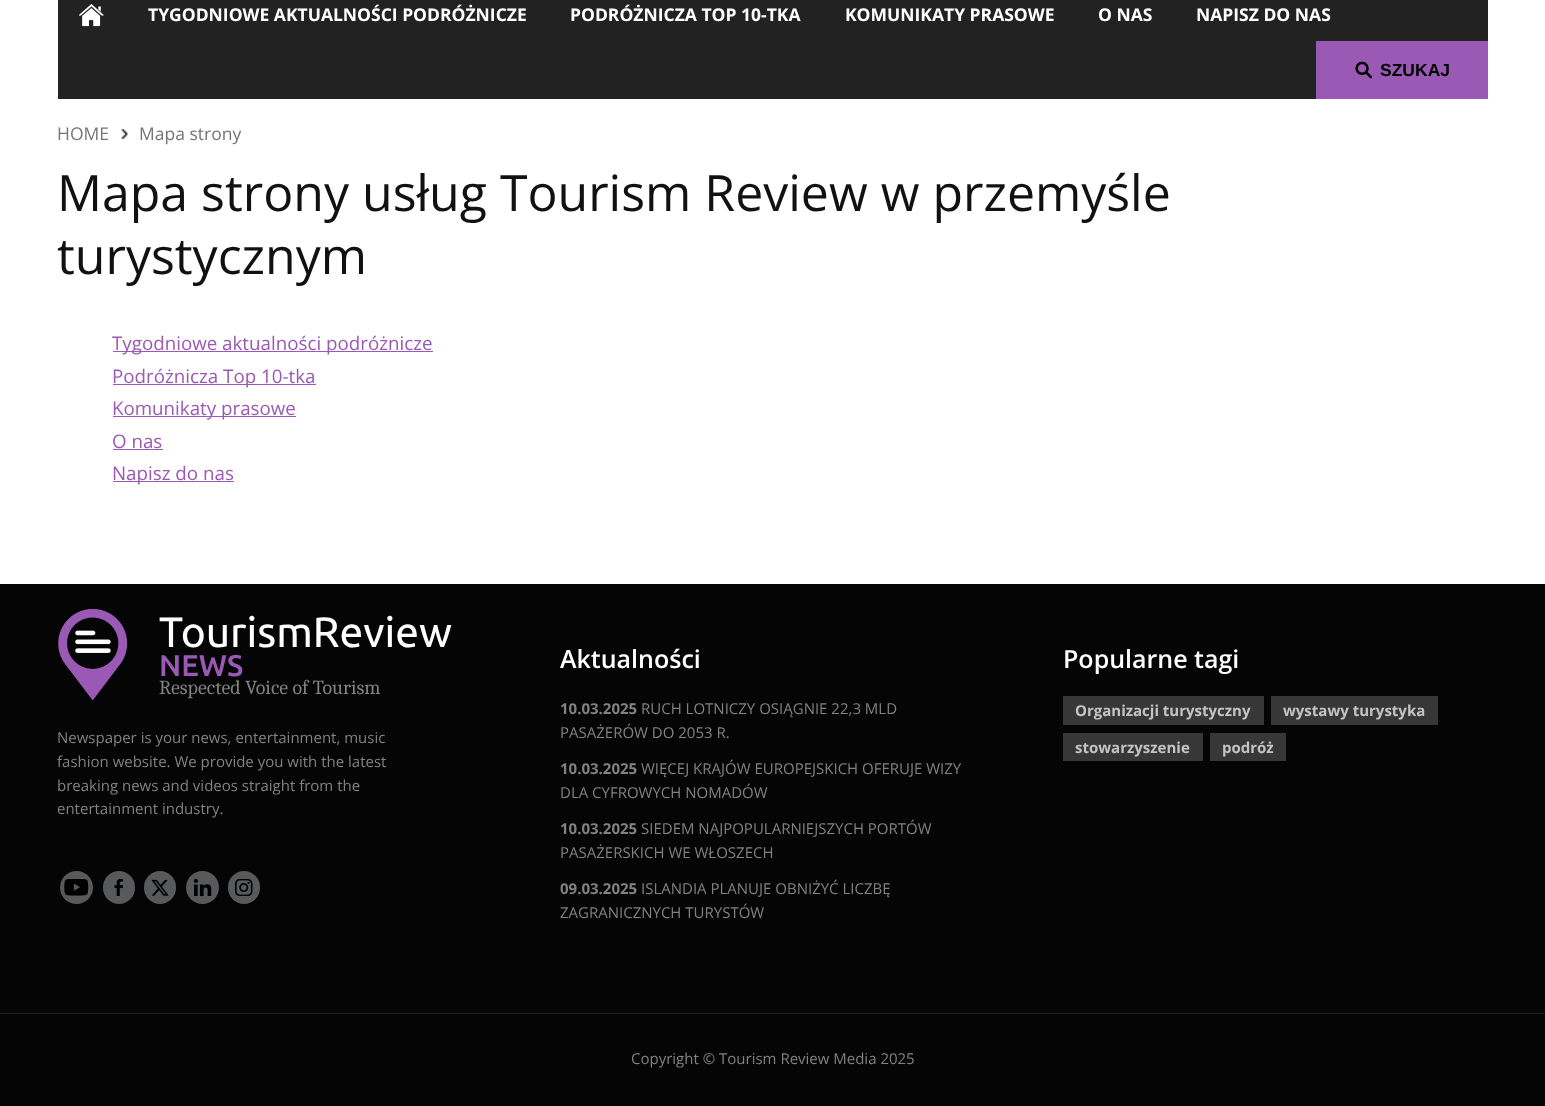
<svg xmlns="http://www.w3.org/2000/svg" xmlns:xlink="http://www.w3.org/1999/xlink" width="1545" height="1106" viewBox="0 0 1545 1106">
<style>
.cls-1{font:bold 17.5px Open Sans;fill:#ffffff}
.cls-2{font:bold 17.5px Liberation Sans;fill:#000000}
.cls-3{font:17.5px Open Sans;fill:#757575}
.cls-4{font:50px Open Sans;fill:#111111}
.cls-5{font:18.75px Open Sans;fill:#9b59b6}
.cls-6{font:42.5px Ubuntu;fill:#ffffff}
.cls-7{font:500 30px Ubuntu;fill:#9b59b6}
.cls-8{font:20px Caladea;fill:#808284}
.cls-9{font:15px Open Sans;fill:#808284}
.cls-10{font:600 25px Open Sans;fill:#ffffff}
.cls-11{font:bold 15px Open Sans;fill:#808284}
.cls-12{font:bold 15px Open Sans;fill:#c4c4c4}
</style>
<rect width="100%" height="100%" fill="#ffffff"/>
<rect fill="#222222" x="58" y="0" width="1430" height="99"/>
<image xlink:href="image0.png" x="79" y="4" width="25" height="23"/>
<rect fill="#9b59b6" x="1316" y="41" width="172" height="58"/>
<image xlink:href="image1.png" x="1355" y="61" width="18" height="18"/>
<image xlink:href="image2.png" x="121" y="129" width="7" height="10"/>
<rect fill="#9b59b6" x="113" y="351" width="320" height="1"/>
<rect fill="#9b59b6" x="113" y="384" width="203" height="1"/>
<rect fill="#9b59b6" x="113" y="416" width="183" height="1"/>
<rect fill="#9b59b6" x="113" y="449" width="50" height="1"/>
<rect fill="#9b59b6" x="113" y="481" width="121" height="1"/>
<rect fill="#050505" x="0" y="584" width="1545" height="522"/>
<image xlink:href="image3.png" x="58" y="609" width="70" height="92"/>
<circle fill="#58595b" cx="76.5" cy="887.5" r="16.5"/>
<image xlink:href="image4.png" x="64" y="879" width="25" height="17"/>
<rect fill="#58595b" x="103" y="871" width="32" height="33" rx="16"/>
<image xlink:href="image5.png" x="114" y="879" width="9" height="17"/>
<rect fill="#58595b" x="144" y="871" width="32" height="33" rx="16"/>
<image xlink:href="image6.png" x="151" y="879" width="18" height="17"/>
<circle fill="#58595b" cx="202.5" cy="887.5" r="16.5"/>
<image xlink:href="image7.png" x="193" y="879" width="19" height="17"/>
<rect fill="#58595b" x="228" y="871" width="32" height="33" rx="16"/>
<image xlink:href="image8.png" x="235" y="879" width="18" height="17"/>
<rect fill="#373737" x="1063" y="696" width="201" height="29"/>
<rect fill="#373737" x="1271" y="696" width="167" height="29"/>
<rect fill="#373737" x="1063" y="733" width="140" height="28"/>
<rect fill="#373737" x="1210" y="733" width="76" height="28"/>
<rect fill="#212121" x="0" y="1013" width="1545" height="1"/>
<text class="cls-1" x="148" y="21">TYGODNIOWE AKTUALNOŚCI PODRÓŻNICZE</text>
<text class="cls-1" x="570" y="21">PODRÓŻNICZA TOP 10-TKA</text>
<text class="cls-1" x="845" y="21">KOMUNIKATY PRASOWE</text>
<text class="cls-1" x="1098" y="21">O NAS</text>
<text class="cls-1" x="1196" y="21">NAPISZ DO NAS</text>
<text class="cls-2" x="1380" y="76">SZUKAJ</text>
<text class="cls-3" x="57" y="140">HOME</text>
<text class="cls-3" x="139" y="140">Mapa strony</text>
<text class="cls-4"><tspan x="57" y="211">Mapa strony usług Tourism Review w przemyśle</tspan><tspan x="57" y="274">turystycznym</tspan></text>
<text class="cls-5"><tspan x="112" y="350">Tygodniowe aktualności podróżnicze</tspan><tspan x="112" y="383">Podróżnicza Top 10-tka</tspan><tspan x="112" y="415">Komunikaty prasowe</tspan><tspan x="112" y="448">O nas</tspan><tspan x="112" y="480">Napisz do nas</tspan></text>
<text class="cls-6" x="159" y="647">TourismReview</text>
<text class="cls-7" x="159" y="676">NEWS</text>
<text class="cls-8" x="159" y="694">Respected Voice of Tourism</text>
<text class="cls-9"><tspan x="57" y="743">Newspaper is your news, entertainment, music</tspan><tspan x="57" y="767">fashion website. We provide you with the latest</tspan><tspan x="57" y="791">breaking news and videos straight from the</tspan><tspan x="57" y="814">entertainment industry.</tspan></text>
<text class="cls-10" x="560" y="668">Aktualności</text>
<text class="cls-11" x="560" y="714">10.03.2025</text>
<text class="cls-9" x="641" y="714">RUCH LOTNICZY OSIĄGNIE 22,3 MLD</text>
<text class="cls-9" x="560" y="738">PASAŻERÓW DO 2053 R.</text>
<text class="cls-11" x="560" y="774">10.03.2025</text>
<text class="cls-9" x="641" y="774">WIĘCEJ KRAJÓW EUROPEJSKICH OFERUJE WIZY</text>
<text class="cls-9" x="560" y="798">DLA CYFROWYCH NOMADÓW</text>
<text class="cls-11" x="560" y="834">10.03.2025</text>
<text class="cls-9" x="641" y="834">SIEDEM NAJPOPULARNIEJSZYCH PORTÓW</text>
<text class="cls-9" x="560" y="858">PASAŻERSKICH WE WŁOSZECH</text>
<text class="cls-11" x="560" y="894">09.03.2025</text>
<text class="cls-9" x="641" y="894">ISLANDIA PLANUJE OBNIŻYĆ LICZBĘ</text>
<text class="cls-9" x="560" y="918">ZAGRANICZNYCH TURYSTÓW</text>
<text class="cls-10" x="1063" y="668">Popularne tagi</text>
<text class="cls-12" x="1075" y="716">Organizacji turystyczny</text>
<text class="cls-12" x="1283" y="716">wystawy turystyka</text>
<text class="cls-12" x="1075" y="753">stowarzyszenie</text>
<text class="cls-12" x="1222" y="753">podróż</text>
<text class="cls-9" x="631" y="1064">Copyright © Tourism Review Media 2025</text>
</svg>
